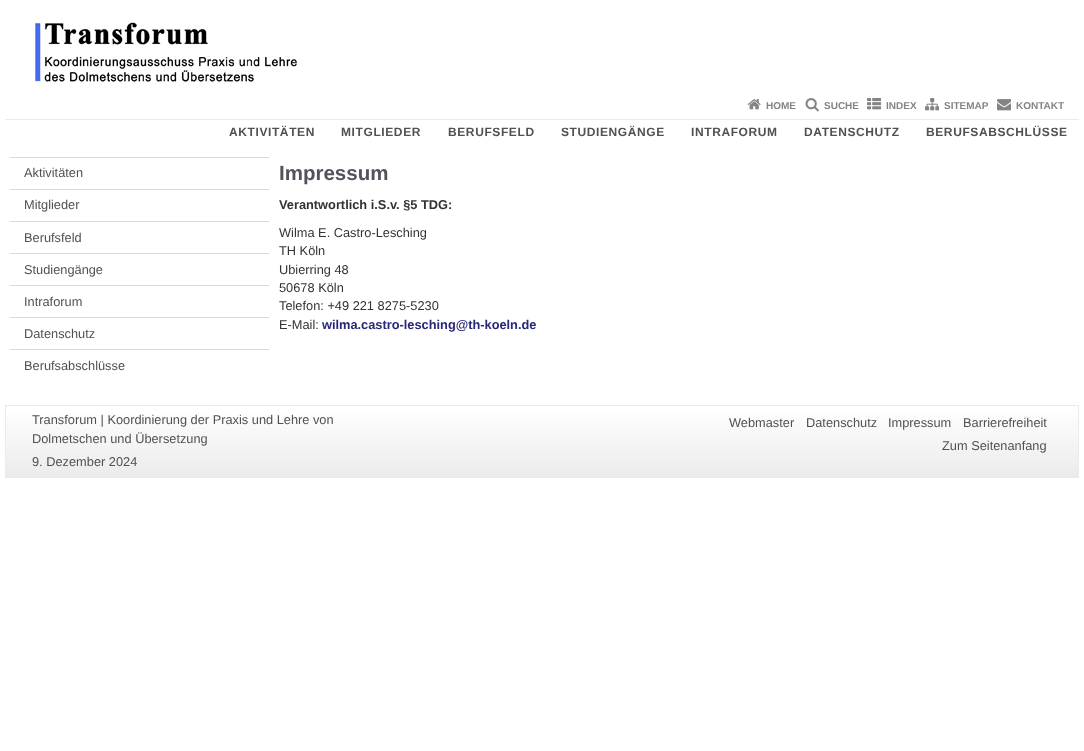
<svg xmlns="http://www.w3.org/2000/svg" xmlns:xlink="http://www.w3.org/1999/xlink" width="1084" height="751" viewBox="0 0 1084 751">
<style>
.cls-1{font:bold 10px Liberation Sans;fill:#848484}
.cls-2{font:bold 12px Liberation Sans;letter-spacing:0.6px;fill:#515151}
.cls-3{font:12.8px Liberation Sans;fill:#515151}
.cls-4{font:bold 20.5px Liberation Sans;fill:#52535d}
.cls-5{font:bold 12.8px Liberation Sans;fill:#333333}
.cls-6{font:12.8px Liberation Sans;fill:#333333}
.cls-7{font:bold 12.8px Liberation Sans;fill:#282879}
</style>
<defs>
<linearGradient id="g1" gradientUnits="userSpaceOnUse" x1="542" y1="477" x2="542" y2="406"><stop offset="0" stop-color="#ebebeb"/><stop offset="1" stop-color="#ffffff"/></linearGradient>
</defs>
<rect width="100%" height="100%" fill="#ffffff"/>
<image xlink:href="image0.png" x="34" y="22" width="263" height="66"/>
<image xlink:href="image1.png" x="747" y="99" width="14" height="11"/>
<image xlink:href="image2.png" x="805" y="98" width="14" height="14"/>
<image xlink:href="image3.png" x="867" y="98" width="14" height="12"/>
<image xlink:href="image4.png" x="925" y="98" width="14" height="13"/>
<image xlink:href="image5.png" x="997" y="99" width="14" height="12"/>
<rect fill="#ebebeb" x="5" y="119" width="1074" height="1"/>
<rect fill="#dadada" x="10" y="157" width="259" height="1"/>
<rect fill="#dadada" x="10" y="189" width="259" height="1"/>
<rect fill="#dadada" x="10" y="221" width="259" height="1"/>
<rect fill="#dadada" x="10" y="253" width="259" height="1"/>
<rect fill="#dadada" x="10" y="285" width="259" height="1"/>
<rect fill="#dadada" x="10" y="317" width="259" height="1"/>
<rect fill="#dadada" x="10" y="349" width="259" height="1"/>
<rect fill="url(#g1)" x="6" y="415" width="1072" height="62"/>
<rect fill="none" stroke="#ebebeb" x="5.5" y="405.5" width="1073" height="72"/>
<text class="cls-1" x="766" y="109">HOME</text>
<text class="cls-1" x="824" y="109">SUCHE</text>
<text class="cls-1" x="886" y="109">INDEX</text>
<text class="cls-1" x="944" y="109">SITEMAP</text>
<text class="cls-1" x="1016" y="109">KONTAKT</text>
<text class="cls-2" x="229" y="136">AKTIVITÄTEN</text>
<text class="cls-2" x="341" y="136">MITGLIEDER</text>
<text class="cls-2" x="448" y="136">BERUFSFELD</text>
<text class="cls-2" x="561" y="136">STUDIENGÄNGE</text>
<text class="cls-2" x="691" y="136">INTRAFORUM</text>
<text class="cls-2" x="804" y="136">DATENSCHUTZ</text>
<text class="cls-2" x="926" y="136">BERUFSABSCHLÜSSE</text>
<text class="cls-3" x="24" y="177">Aktivitäten</text>
<text class="cls-3" x="24" y="209">Mitglieder</text>
<text class="cls-3" x="24" y="242">Berufsfeld</text>
<text class="cls-3" x="24" y="274">Studiengänge</text>
<text class="cls-3" x="24" y="306">Intraforum</text>
<text class="cls-3" x="24" y="338">Datenschutz</text>
<text class="cls-3" x="24" y="370">Berufsabschlüsse</text>
<text class="cls-4" x="279" y="180">Impressum</text>
<text class="cls-5" x="279" y="209">Verantwortlich i.S.v. §5 TDG:</text>
<text class="cls-6"><tspan x="279" y="237">Wilma E. Castro-Lesching</tspan><tspan x="279" y="255">TH Köln</tspan><tspan x="279" y="274">Ubierring 48</tspan><tspan x="279" y="292">50678 Köln</tspan><tspan x="279" y="310">Telefon: +49 221 8275-5230</tspan><tspan x="279" y="329">E-Mail:</tspan></text>
<text class="cls-7" x="322" y="329">wilma.castro-lesching@th-koeln.de</text>
<text class="cls-3"><tspan x="32" y="424">Transforum | Koordinierung der Praxis und Lehre von</tspan><tspan x="32" y="443">Dolmetschen und Übersetzung</tspan><tspan x="32" y="466">9. Dezember 2024</tspan></text>
<text class="cls-3" x="729" y="427">Webmaster</text>
<text class="cls-3" x="806" y="427">Datenschutz</text>
<text class="cls-3" x="888" y="427">Impressum</text>
<text class="cls-3" x="963" y="427">Barrierefreiheit</text>
<text class="cls-3" x="942" y="450">Zum Seitenanfang</text>
</svg>
